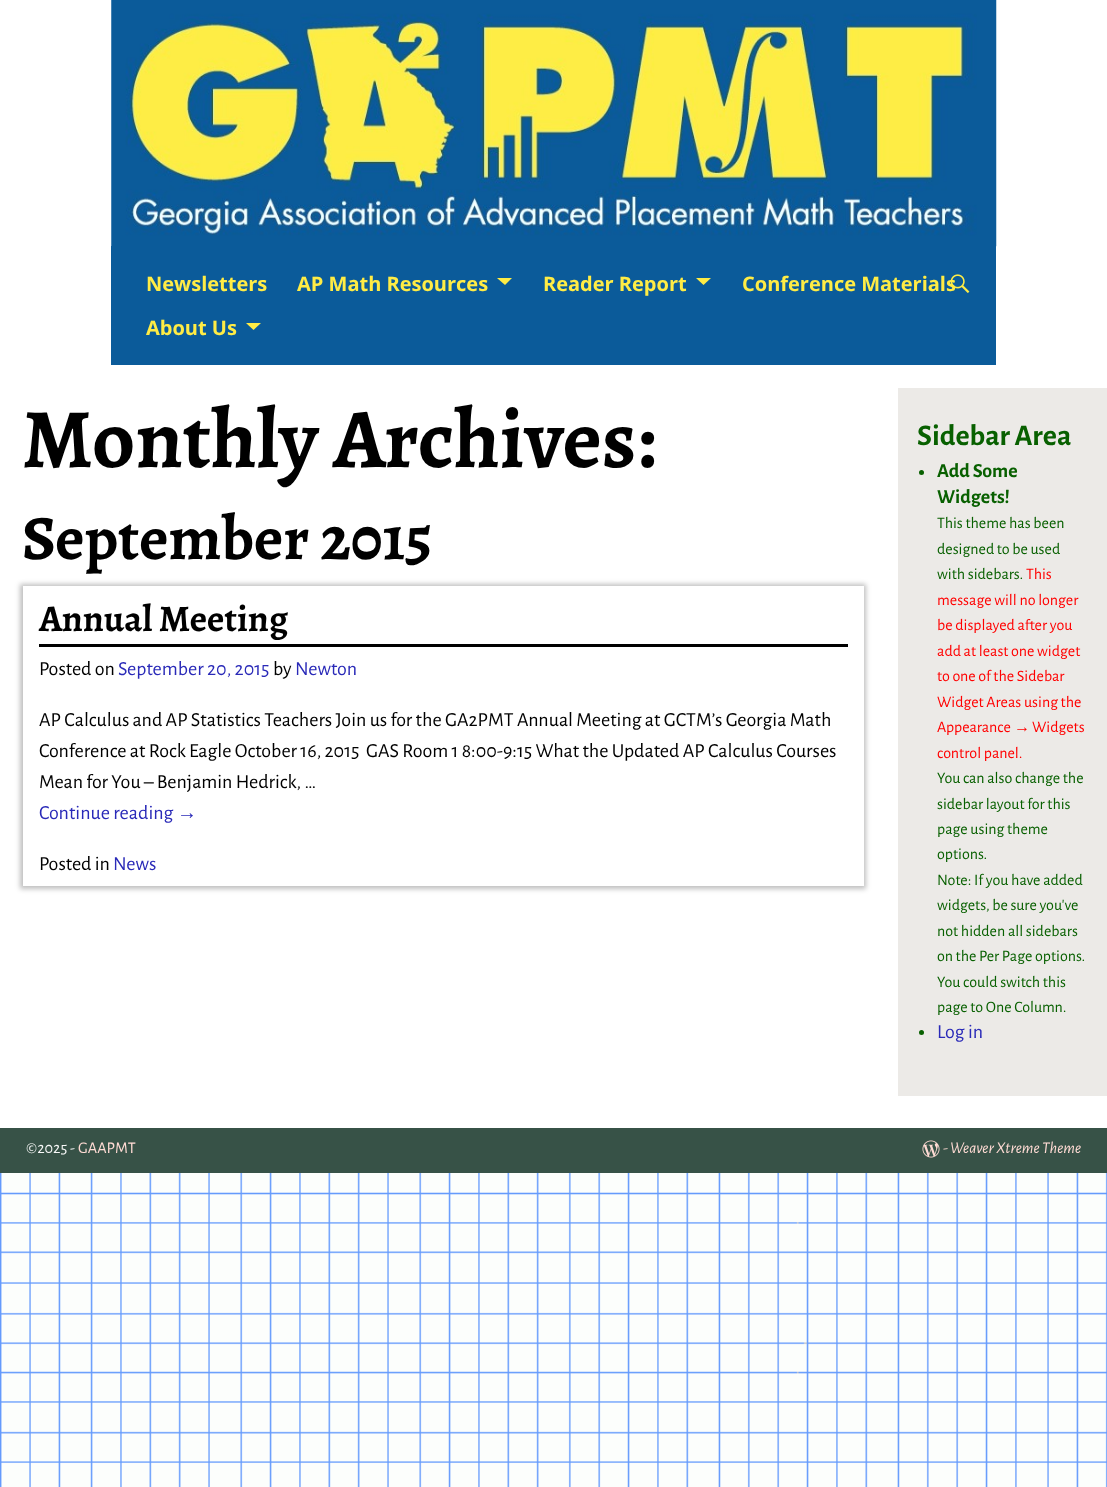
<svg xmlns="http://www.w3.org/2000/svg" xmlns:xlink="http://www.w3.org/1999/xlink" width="1107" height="1487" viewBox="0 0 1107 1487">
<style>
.cls-1{font:bold 20px Open Sans;fill:#ffec45}
.cls-2{font:bold 84.5px Alegreya;fill:#000000}
.cls-3{font:bold 63.25px Alegreya;fill:#000000}
.cls-4{font:bold 37.5px Alegreya;fill:#000000}
.cls-5{font:20px Alegreya Sans;fill:#000000}
.cls-6{font:20px Alegreya Sans;fill:#2a2ab8}
.cls-7{font:20px Liberation Sans;fill:#2a2ab8}
.cls-8{font:bold 30px Alegreya Sans;fill:#086000}
.cls-9{font:bold 20px Alegreya Sans;fill:#086000}
.cls-10{font:16px Alegreya Sans;fill:#086000}
.cls-11{font:16px Alegreya Sans;fill:#ff0000}
.cls-12{font:16px Liberation Sans;fill:#ff0000}
.cls-13{font:16.25px Alegreya Sans;fill:#f9f9f9}
.cls-14{font:16.25px Alegreya Sans;fill:#ffdbd4}
.cls-15{font:italic 16.25px Alegreya Sans;fill:#ffdbd4}
</style>
<rect width="100%" height="100%" fill="#ffffff"/>
<image xlink:href="image0.png" x="0" y="1173" width="1107" height="314"/>
<image xlink:href="image1.png" x="111" y="0" width="886" height="247"/>
<rect fill="#0b5b9a" x="111" y="246" width="885" height="119"/>
<path fill="#ffec45" d="M497 278H512L505 285Z"/>
<path fill="#ffec45" d="M696 278H711L703.5 285Z"/>
<path fill="#ffec45" d="M246 323H261L253.5 330Z"/>
<rect fill="#000000" fill-opacity="0.25" filter="blur(2.5px)" x="20" y="584" width="846" height="305"/>
<rect fill="#ffffff" x="23" y="586" width="841" height="300"/>
<rect fill="#000000" x="39" y="644" width="809" height="3"/>
<rect fill="#eceae7" x="898" y="388" width="209" height="708"/>
<circle fill="#086000" cx="921.5" cy="472.5" r="2.5"/>
<circle fill="#086000" cx="921.5" cy="1032.5" r="2.5"/>
<rect fill="#375247" x="0" y="1128" width="1107" height="45"/>
<image xlink:href="image3.png" x="922" y="1140" width="18" height="18"/>
<text class="cls-1" x="146" y="291">Newsletters</text>
<text class="cls-1" x="297" y="291">AP Math Resources</text>
<text class="cls-1" x="543" y="291">Reader Report</text>
<text class="cls-1" x="742" y="291">Conference Materials</text>
<text class="cls-1" x="146" y="335">About Us</text>
<image xlink:href="image2.png" x="950" y="274" width="20" height="19"/>
<text class="cls-2" x="22" y="467">Monthly Archives:</text>
<text class="cls-3" x="22" y="559">September 2015</text>
<text class="cls-4" x="39" y="631">Annual Meeting</text>
<text class="cls-5" x="39" y="675">Posted on</text>
<text class="cls-6" x="118" y="675">September 20, 2015</text>
<text class="cls-5" x="273" y="675">by</text>
<text class="cls-6" x="295" y="675">Newton</text>
<text class="cls-5" xml:space="preserve"><tspan x="39" y="726">AP Calculus and AP Statistics Teachers Join us for the GA2PMT Annual Meeting at GCTM’s Georgia Math</tspan><tspan x="39" y="757">Conference at Rock Eagle October 16, 2015  GAS Room 1 8:00-9:15 What the Updated AP Calculus Courses</tspan><tspan x="39" y="788">Mean for You – Benjamin Hedrick, …</tspan></text>
<text class="cls-6" x="39" y="819">Continue reading</text>
<text class="cls-7" x="177" y="819">→</text>
<text class="cls-5" x="39" y="870">Posted in</text>
<text class="cls-6" x="113" y="870">News</text>
<text class="cls-8" x="917" y="445">Sidebar Area</text>
<text class="cls-9"><tspan x="937" y="477">Add Some</tspan><tspan x="937" y="503">Widgets!</tspan></text>
<text class="cls-10"><tspan x="937" y="528">This theme has been</tspan><tspan x="937" y="554">designed to be used</tspan><tspan x="937" y="579">with sidebars.</tspan></text>
<text class="cls-11" x="1026" y="579">This</text>
<text class="cls-11"><tspan x="937" y="605">message will no longer</tspan><tspan x="937" y="630">be displayed after you</tspan><tspan x="937" y="656">add at least one widget</tspan><tspan x="937" y="681">to one of the Sidebar</tspan><tspan x="937" y="707">Widget Areas using the</tspan><tspan x="937" y="732">Appearance</tspan></text>
<text class="cls-12" x="1014" y="732">→</text>
<text class="cls-11" x="1032" y="732">Widgets</text>
<text class="cls-11" x="937" y="758">control panel.</text>
<text class="cls-10"><tspan x="937" y="783">You can also change the</tspan><tspan x="937" y="809">sidebar layout for this</tspan><tspan x="937" y="834">page using theme</tspan><tspan x="937" y="859">options.</tspan><tspan x="937" y="885">Note: If you have added</tspan><tspan x="937" y="910">widgets, be sure you've</tspan><tspan x="937" y="936">not hidden all sidebars</tspan><tspan x="937" y="961">on the Per Page options.</tspan><tspan x="937" y="987">You could switch this</tspan><tspan x="937" y="1012">page to One Column.</tspan></text>
<text class="cls-6" x="937" y="1038">Log in</text>
<text class="cls-13" x="26" y="1153">©2025 -</text>
<text class="cls-14" x="78" y="1153">GAAPMT</text>
<text class="cls-15" x="943" y="1153">- Weaver Xtreme Theme</text>
</svg>
